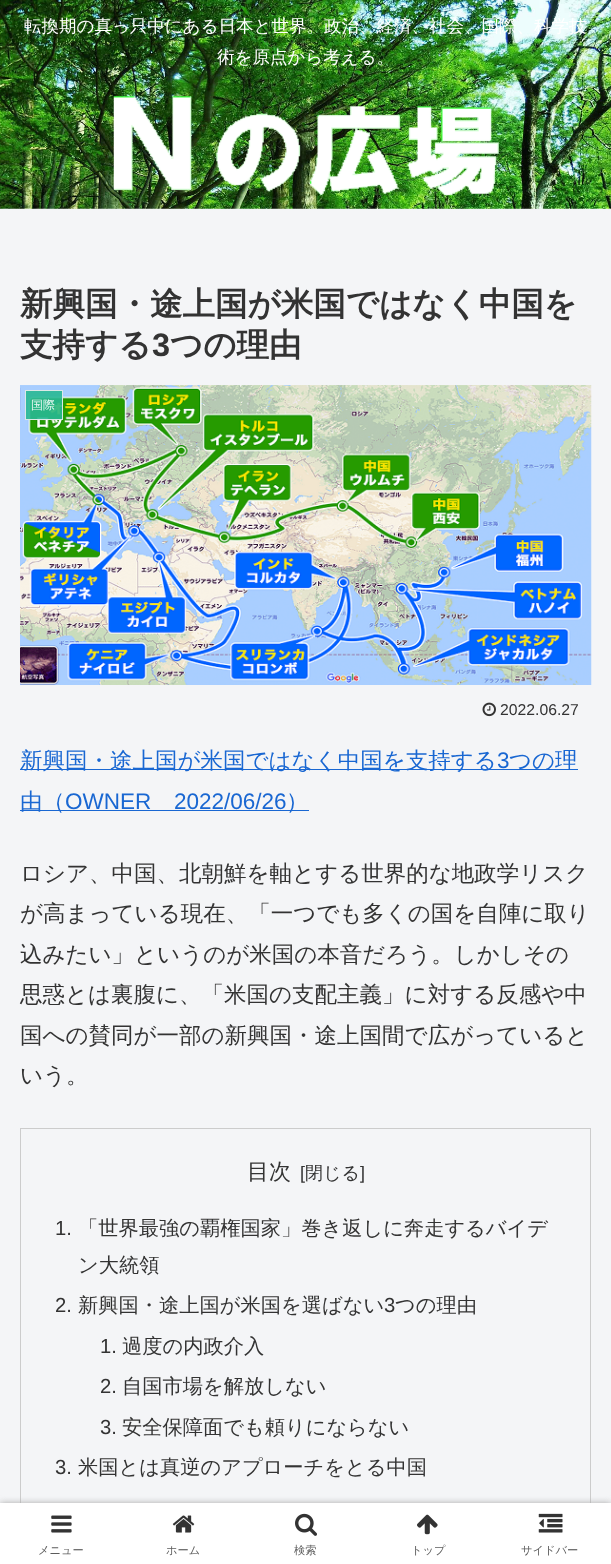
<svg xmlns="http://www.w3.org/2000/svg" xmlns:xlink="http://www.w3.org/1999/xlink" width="611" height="1564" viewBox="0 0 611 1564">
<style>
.cls-1{font:500 17.5px WenQuanYi Zen Hei;fill:#ffffff}
.cls-2{font:bold 32.5px WenQuanYi Zen Hei;fill:#333333}
.cls-3{font:bold 32.5px Liberation Sans;fill:#333333}
.cls-4{font:500 12px WenQuanYi Zen Hei;fill:#eaf8f3}
.cls-5{font:15.75px Liberation Sans;fill:#333333}
.cls-6{font:500 22.5px WenQuanYi Zen Hei;fill:#1967d2}
.cls-7{font:22.5px Liberation Sans;fill:#1967d2}
.cls-8{font:500 22.5px WenQuanYi Zen Hei;fill:#333333}
.cls-9{font:500 22px WenQuanYi Zen Hei;fill:#333333}
.cls-10{font:18px Liberation Sans;fill:#333333}
.cls-11{font:500 18px WenQuanYi Zen Hei;fill:#333333}
.cls-12{font:20.25px Liberation Sans;fill:#333333}
.cls-13{font:500 20.25px WenQuanYi Zen Hei;fill:#333333}
.cls-14{font:500 11.25px WenQuanYi Zen Hei;fill:#5c5c5c}
</style>
<rect width="100%" height="100%" fill="#f4f5f7"/>
<image xlink:href="image0.png" x="0" y="0" width="611" height="209"/>
<image xlink:href="image1.png" x="113" y="96" width="386" height="100"/>
<image xlink:href="image2.png" x="20" y="385" width="572" height="300"/>
<rect fill="#28b893" fill-opacity="0.9" x="25" y="390" width="38" height="30"/>
<rect fill="none" stroke="#eeeeee" stroke-opacity="0.9" x="25.5" y="390.5" width="37" height="29"/>
<image xlink:href="image3.png" x="482" y="702" width="14" height="15"/>
<rect fill="#1967d2" x="20" y="769" width="558" height="1"/>
<rect fill="#1967d2" x="20" y="810" width="289" height="1"/>
<rect fill="none" stroke="#cccccc" x="20.5" y="1128.5" width="570" height="419"/>
<rect fill="#a9a9a9" filter="blur(3px)" x="0" y="1503" width="611" height="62"/>
<rect fill="#ffffff" x="0" y="1503" width="611" height="61"/>
<image xlink:href="image4.png" x="51" y="1515" width="21" height="18"/>
<image xlink:href="image5.png" x="172" y="1515" width="23" height="18"/>
<image xlink:href="image6.png" x="295" y="1513" width="22" height="23"/>
<image xlink:href="image7.png" x="417" y="1514" width="21" height="21"/>
<image xlink:href="image8.png" x="538" y="1513" width="25" height="20"/>
<text class="cls-1" x="24" y="32">転換期の真っ只中にある日本と世界。政治、経済、社会、国際、科学技</text>
<text class="cls-1" x="217" y="63">術を原点から考える。</text>
<text class="cls-2"><tspan x="20" y="315">新興国・途上国が米国ではなく中国を</tspan><tspan x="20" y="356">支持する</tspan></text>
<text class="cls-3" x="152" y="356">3</text>
<text class="cls-2" x="170" y="356">つの理由</text>
<text class="cls-4" x="31" y="409">国際</text>
<text class="cls-5" x="500" y="715">2022.06.27</text>
<text class="cls-6" x="20" y="768">新興国・途上国が米国ではなく中国を支持する</text>
<text class="cls-7" x="497" y="768">3</text>
<text class="cls-6" x="509" y="768">つの理</text>
<text class="cls-6" x="20" y="809">由（</text>
<text class="cls-7" x="65" y="809">OWNER</text>
<text class="cls-7" x="174" y="809">2022/06/26</text>
<text class="cls-6" x="286" y="809">）</text>
<text class="cls-8"><tspan x="20" y="881">ロシア、中国、北朝鮮を軸とする世界的な地政学リスク</tspan><tspan x="20" y="921">が高まっている現在、「一つでも多くの国を自陣に取り</tspan><tspan x="20" y="962">込みたい」というのが米国の本音だろう。しかしその</tspan><tspan x="20" y="1002">思惑とは裏腹に、「米国の支配主義」に対する反感や中</tspan><tspan x="20" y="1043">国への賛同が一部の新興国・途上国間で広がっていると</tspan><tspan x="20" y="1083">いう。</tspan></text>
<text class="cls-9" x="247" y="1179">目次</text>
<text class="cls-10" x="300" y="1179">[</text>
<text class="cls-11" x="305" y="1179">閉じる</text>
<text class="cls-10" x="360" y="1179">]</text>
<text class="cls-12" x="55" y="1235">1.</text>
<text class="cls-13"><tspan x="78" y="1235">「世界最強の覇権国家」巻き返しに奔走するバイデ</tspan><tspan x="78" y="1272">ン大統領</tspan></text>
<text class="cls-12" x="55" y="1312">2.</text>
<text class="cls-13" x="78" y="1312">新興国・途上国が米国を選ばない</text>
<text class="cls-12" x="384" y="1312">3</text>
<text class="cls-13" x="395" y="1312">つの理由</text>
<text class="cls-12" x="100" y="1353">1.</text>
<text class="cls-13" x="122" y="1353">過度の内政介入</text>
<text class="cls-12" x="100" y="1393">2.</text>
<text class="cls-13" x="122" y="1393">自国市場を解放しない</text>
<text class="cls-12" x="100" y="1434">3.</text>
<text class="cls-13" x="122" y="1434">安全保障面でも頼りにならない</text>
<text class="cls-12" x="55" y="1474">3.</text>
<text class="cls-13" x="78" y="1474">米国とは真逆のアプローチをとる中国</text>
<text class="cls-14" x="38" y="1554">メニュー</text>
<text class="cls-14" x="166" y="1554">ホーム</text>
<text class="cls-14" x="294" y="1554">検索</text>
<text class="cls-14" x="411" y="1554">トップ</text>
<text class="cls-14" x="521" y="1554">サイドバー</text>
</svg>
